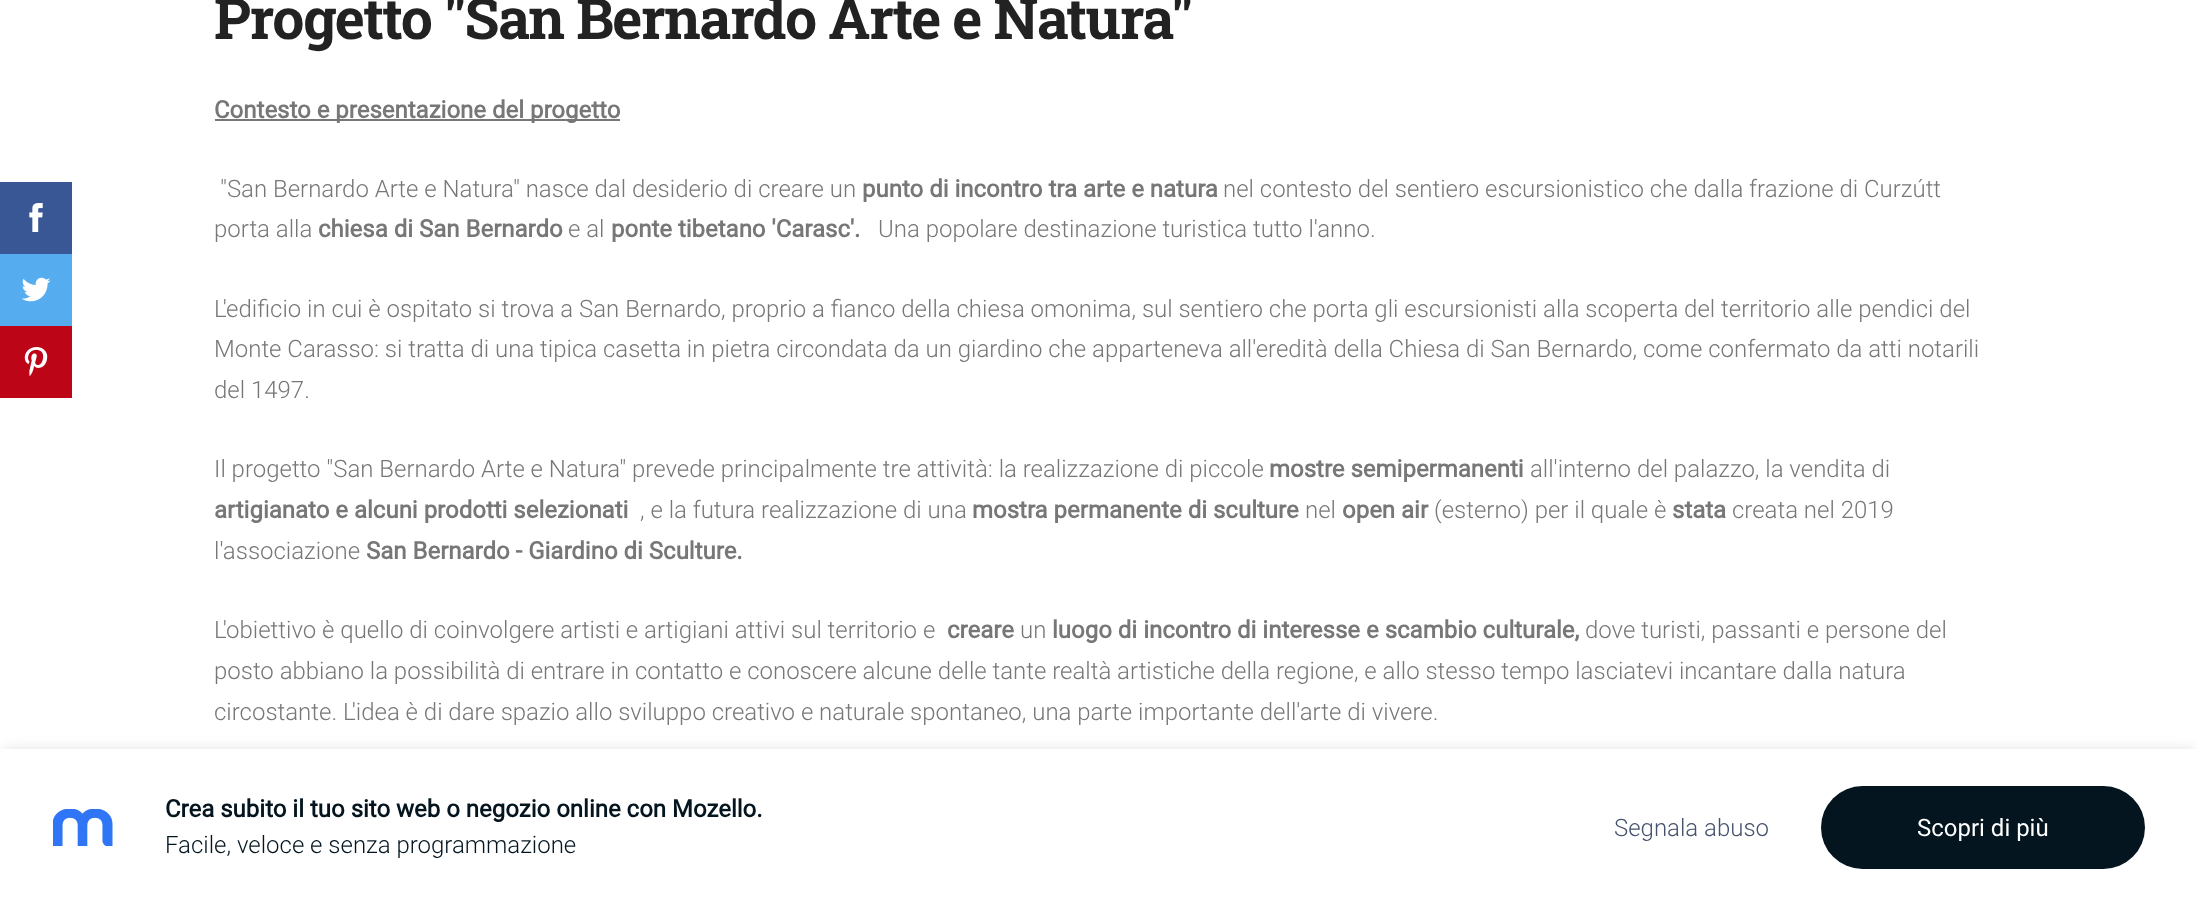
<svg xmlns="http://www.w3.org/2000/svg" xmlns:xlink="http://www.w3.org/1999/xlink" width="2197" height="905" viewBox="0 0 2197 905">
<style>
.cls-1{font:bold 57.1px Roboto Slab;letter-spacing:-1.45px;fill:#222222}
.cls-2{font:bold 24px Roboto;fill:#777777}
.cls-3{font:300 24px Roboto;fill:#777777}
.cls-4{font:bold 24px Roboto;fill:#04151f}
.cls-5{font:300 24px Roboto;fill:#04151f}
.cls-6{font:300 24px Roboto;fill:#45526c}
.cls-7{font:24px Roboto;fill:#ffffff}
</style>
<rect width="100%" height="100%" fill="#ffffff"/>
<rect fill="#3a5795" x="0" y="182" width="72" height="72"/>
<image xlink:href="image0.png" x="29" y="203" width="14" height="29"/>
<rect fill="#55acee" x="0" y="254" width="72" height="72"/>
<image xlink:href="image1.png" x="21" y="277" width="30" height="25"/>
<rect fill="#bc0618" x="0" y="326" width="72" height="72"/>
<image xlink:href="image2.png" x="24" y="347" width="24" height="29"/>
<rect fill="#777777" x="215" y="119" width="405" height="2"/>
<rect fill="#000000" fill-opacity="0.17" filter="blur(7.5px)" x="3" y="752" width="2192" height="151"/>
<rect fill="#ffffff" x="0" y="749" width="2197" height="156"/>
<image xlink:href="image3.png" x="53" y="809" width="60" height="37"/>
<rect fill="#04151f" x="1821" y="786" width="324" height="83" rx="41.5"/>
<text class="cls-1" x="214" y="39">Progetto "San Bernardo Arte e Natura"</text>
<text class="cls-2" x="214" y="118">Contesto e presentazione del progetto</text>
<text class="cls-3" x="220" y="197">"San Bernardo Arte e Natura" nasce dal desiderio di creare un</text>
<text class="cls-2" x="862" y="197">punto di incontro tra arte e natura</text>
<text class="cls-3" x="1223" y="197">nel contesto del sentiero escursionistico che dalla frazione di Curzútt</text>
<text class="cls-3" x="214" y="237">porta alla</text>
<text class="cls-2" x="318" y="237">chiesa di San Bernardo</text>
<text class="cls-3" x="568" y="237">e al</text>
<text class="cls-2" x="611" y="237">ponte tibetano 'Carasc'.</text>
<text class="cls-3" x="878" y="237">Una popolare destinazione turistica tutto l'anno.</text>
<text class="cls-3"><tspan x="214" y="317">L'edificio in cui è ospitato si trova a San Bernardo, proprio a fianco della chiesa omonima, sul sentiero che porta gli escursionisti alla scoperta del territorio alle pendici del</tspan><tspan x="214" y="357">Monte Carasso: si tratta di una tipica casetta in pietra circondata da un giardino che apparteneva all'eredità della Chiesa di San Bernardo, come confermato da atti notarili</tspan><tspan x="214" y="398">del 1497.</tspan></text>
<text class="cls-3" x="214" y="477">Il progetto "San Bernardo Arte e Natura" prevede principalmente tre attività: la realizzazione di piccole</text>
<text class="cls-2" x="1269" y="477">mostre semipermanenti</text>
<text class="cls-3" x="1530" y="477">all'interno del palazzo, la vendita di</text>
<text class="cls-2" x="214" y="518">artigianato e alcuni prodotti selezionati</text>
<text class="cls-3" x="640" y="518">, e la futura realizzazione di una</text>
<text class="cls-2" x="972" y="518">mostra permanente di sculture</text>
<text class="cls-3" x="1305" y="518">nel</text>
<text class="cls-2" x="1342" y="518">open air</text>
<text class="cls-3" x="1434" y="518">(esterno) per il quale è</text>
<text class="cls-2" x="1672" y="518">stata</text>
<text class="cls-3" x="1732" y="518">creata nel 2019</text>
<text class="cls-3" x="214" y="559">l'associazione</text>
<text class="cls-2" x="366" y="559">San Bernardo - Giardino di Sculture.</text>
<text class="cls-3" x="214" y="638">L'obiettivo è quello di coinvolgere artisti e artigiani attivi sul territorio e</text>
<text class="cls-2" x="947" y="638">creare</text>
<text class="cls-3" x="1020" y="638">un</text>
<text class="cls-2" x="1052" y="638">luogo di incontro di interesse e scambio culturale,</text>
<text class="cls-3" x="1585" y="638">dove turisti, passanti e persone del</text>
<text class="cls-3"><tspan x="214" y="679">posto abbiano la possibilità di entrare in contatto e conoscere alcune delle tante realtà artistiche della regione, e allo stesso tempo lasciatevi incantare dalla natura</tspan><tspan x="214" y="720">circostante. L'idea è di dare spazio allo sviluppo creativo e naturale spontaneo, una parte importante dell'arte di vivere.</tspan></text>
<text class="cls-4" x="165" y="817">Crea subito il tuo sito web o negozio online con Mozello.</text>
<text class="cls-5" x="165" y="853">Facile, veloce e senza programmazione</text>
<text class="cls-6" x="1614" y="836">Segnala abuso</text>
<text class="cls-7" x="1917" y="836">Scopri di più</text>
</svg>
